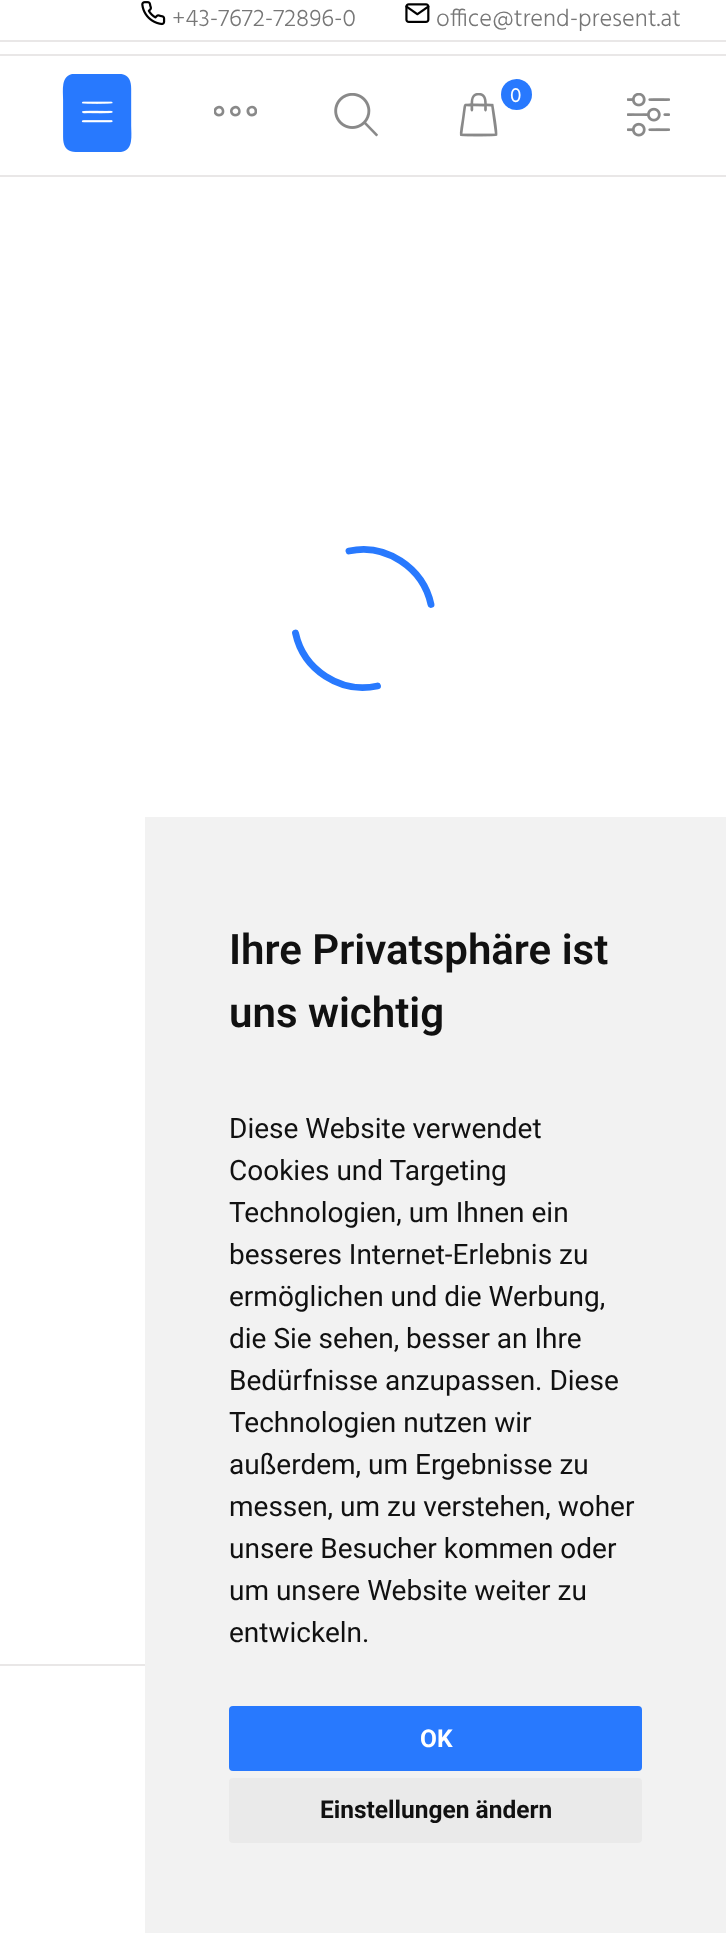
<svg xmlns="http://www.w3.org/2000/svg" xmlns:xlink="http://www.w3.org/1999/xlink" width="726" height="1933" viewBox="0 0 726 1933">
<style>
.cls-1{font:300 24.5px Hind;fill:#777777}
.cls-2{font:21px Hind;fill:#ffffff}
.cls-3{font:600 42px Roboto;fill:#111111}
.cls-4{font:28px Roboto;fill:#111111}
.cls-5{font:bold 24.5px Roboto;fill:#ffffff}
.cls-6{font:bold 24.5px Roboto;fill:#111111}
</style>
<rect width="100%" height="100%" fill="#ffffff"/>
<image xlink:href="image0.png" x="141" y="1" width="25" height="25"/>
<image xlink:href="image1.png" x="405" y="3" width="25" height="20"/>
<rect fill="#e9e7e7" x="0" y="40" width="726" height="2"/>
<rect fill="#e9e7e7" x="0" y="54" width="726" height="2"/>
<image xlink:href="image2.png" x="62" y="74" width="70" height="78"/>
<image xlink:href="image3.png" x="214" y="105" width="43" height="12"/>
<image xlink:href="image4.png" x="334" y="93" width="44" height="44"/>
<image xlink:href="image5.png" x="459" y="93" width="39" height="44"/>
<circle fill="#2879fe" cx="516.5" cy="94.5" r="15.5"/>
<image xlink:href="image6.png" x="627" y="93" width="43" height="44"/>
<rect fill="#e9e7e7" x="0" y="175" width="726" height="2"/>
<path fill="none" stroke="#2879fe" stroke-width="6.9" stroke-linecap="round" d="M377.5 686C340.5 694 303.5 670 295.5 633M349 551C385.5 543 423 567.5 431 604.5"/>
<rect fill="#e9e7e7" x="0" y="1664" width="145" height="2"/>
<rect fill="#f2f2f2" x="145" y="817" width="581" height="1116"/>
<rect fill="#2879fe" x="229" y="1706" width="413" height="65" rx="4"/>
<rect fill="#eaeaea" x="229" y="1778" width="413" height="65" rx="4"/>
<text class="cls-1" x="172" y="26">+43-7672-72896-0</text>
<text class="cls-1" x="436" y="26">office@trend-present.at</text>
<text class="cls-2" x="510" y="102">0</text>
<text class="cls-3"><tspan x="229" y="964">Ihre Privatsphäre ist</tspan><tspan x="229" y="1027">uns wichtig</tspan></text>
<text class="cls-4"><tspan x="229" y="1138">Diese Website verwendet</tspan><tspan x="229" y="1180">Cookies und Targeting</tspan><tspan x="229" y="1222">Technologien, um Ihnen ein</tspan><tspan x="229" y="1264">besseres Internet-Erlebnis zu</tspan><tspan x="229" y="1306">ermöglichen und die Werbung,</tspan><tspan x="229" y="1348">die Sie sehen, besser an Ihre</tspan><tspan x="229" y="1390">Bedürfnisse anzupassen. Diese</tspan><tspan x="229" y="1432">Technologien nutzen wir</tspan><tspan x="229" y="1474">außerdem, um Ergebnisse zu</tspan><tspan x="229" y="1516">messen, um zu verstehen, woher</tspan><tspan x="229" y="1558">unsere Besucher kommen oder</tspan><tspan x="229" y="1600">um unsere Website weiter zu</tspan><tspan x="229" y="1642">entwickeln.</tspan></text>
<text class="cls-5" x="420" y="1747">OK</text>
<text class="cls-6" x="320" y="1818">Einstellungen ändern</text>
</svg>
